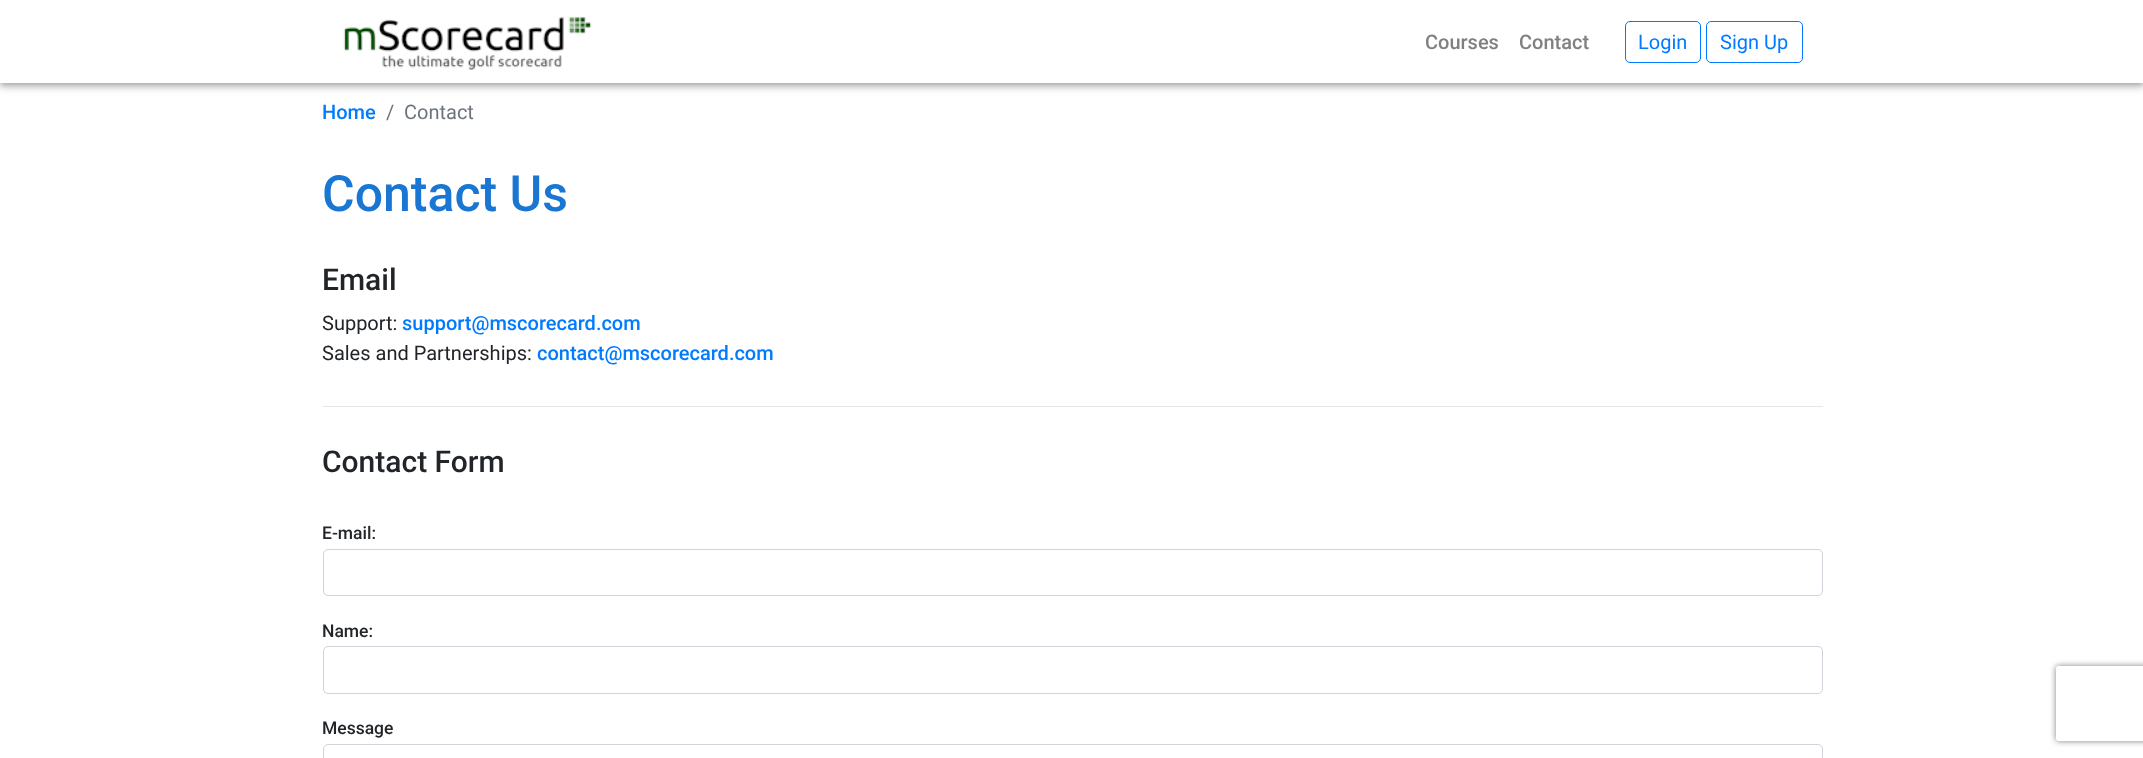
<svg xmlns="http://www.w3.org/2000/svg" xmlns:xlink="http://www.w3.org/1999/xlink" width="2143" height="758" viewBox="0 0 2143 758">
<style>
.cls-1{font:500 20px Roboto;fill:#808080}
.cls-2{font:20px Roboto;fill:#007bff}
.cls-3{font:500 20px Roboto;fill:#007bff}
.cls-4{font:20px Roboto;fill:#6c757d}
.cls-5{font:500 50px Roboto;fill:#1976d2}
.cls-6{font:500 30px Roboto;fill:#212529}
.cls-7{font:20px Roboto;fill:#212529}
.cls-8{font:500 17.5px Roboto;fill:#212529}
</style>
<defs>
<clipPath id="clip1"><path d="M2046 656H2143V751H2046ZM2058.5 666H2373.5C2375 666 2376 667 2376 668.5V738.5C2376 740 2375 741 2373.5 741H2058.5C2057 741 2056 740 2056 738.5V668.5C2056 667 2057 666 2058.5 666Z" clip-rule="evenodd"/></clipPath>
</defs>
<rect width="100%" height="100%" fill="#ffffff"/>
<rect fill="#000000" fill-opacity="0.12" filter="blur(6px)" x="0" y="1" width="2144" height="83"/>
<rect fill="#000000" fill-opacity="0.14" filter="blur(3px)" x="0" y="5" width="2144" height="83"/>
<rect fill="#000000" fill-opacity="0.2" filter="blur(2.5px)" x="1" y="4" width="2142" height="80"/>
<rect fill="#ffffff" x="0" y="0" width="2143" height="83"/>
<image xlink:href="image0.png" x="343" y="16" width="249" height="54"/>
<rect fill="none" stroke="#007bff" x="1625.5" y="21.5" width="75" height="41" rx="4.5"/>
<rect fill="none" stroke="#007bff" x="1706.5" y="21.5" width="96" height="41" rx="4.5"/>
<rect fill="#e6e6e6" x="323" y="406" width="1500" height="1"/>
<rect fill="none" stroke="#ced4da" x="323.5" y="549.5" width="1499" height="46" rx="4.5"/>
<rect fill="none" stroke="#ced4da" x="323.5" y="646.5" width="1499" height="47" rx="4.5"/>
<rect fill="none" stroke="#ced4da" x="323.5" y="744.5" width="1499" height="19" rx="4.5"/>
<g clip-path="url(#clip1)">
<rect fill="#808080" filter="blur(3px)" x="2056" y="666" width="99" height="75" rx="2.5"/>
</g>
<text class="cls-1" x="1425" y="49">Courses</text>
<text class="cls-1" x="1519" y="49">Contact</text>
<text class="cls-2" x="1638" y="49">Login</text>
<text class="cls-2" x="1720" y="49">Sign Up</text>
<text class="cls-3" x="322" y="119">Home</text>
<text class="cls-4" x="386" y="119">/</text>
<text class="cls-4" x="404" y="119">Contact</text>
<text class="cls-5" x="322" y="211">Contact Us</text>
<text class="cls-6" x="322" y="290">Email</text>
<text class="cls-7" x="322" y="330">Support:</text>
<text class="cls-3" x="402" y="330">support@mscorecard.com</text>
<text class="cls-7" x="322" y="360">Sales and Partnerships:</text>
<text class="cls-3" x="537" y="360">contact@mscorecard.com</text>
<text class="cls-6" x="322" y="472">Contact Form</text>
<text class="cls-8" x="322" y="539">E-mail:</text>
<text class="cls-8" x="322" y="637">Name:</text>
<text class="cls-8" x="322" y="734">Message</text>
</svg>
